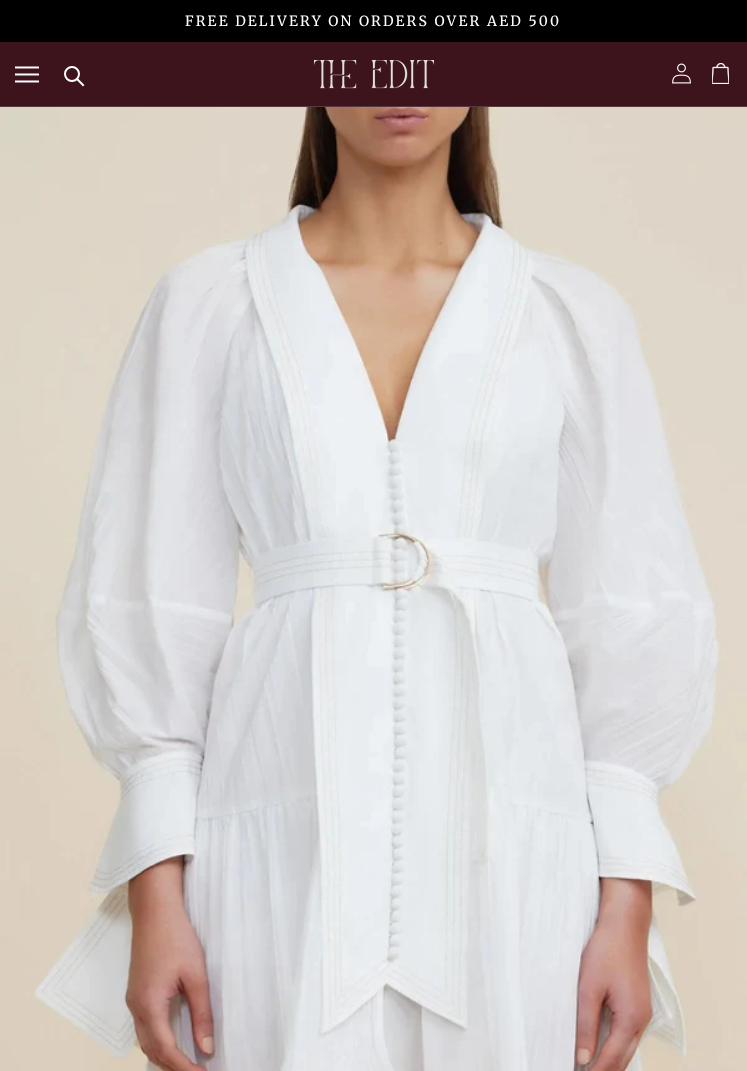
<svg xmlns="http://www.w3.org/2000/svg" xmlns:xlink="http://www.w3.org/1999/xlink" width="747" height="1071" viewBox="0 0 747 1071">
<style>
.cls-1{font:14px Merriweather;letter-spacing:2.2px;fill:#ffffff}
</style>
<rect width="100%" height="100%" fill="#000000"/>
<rect fill="#3d131c" x="0" y="42" width="747" height="64"/>
<rect fill="#5a363e" x="0" y="106" width="747" height="1"/>
<image xlink:href="image0.png" x="15" y="66" width="24" height="17"/>
<path fill="none" stroke="#ffffff" stroke-width="2" stroke-linecap="square" d="M83 85L77.5 79.5"/>
<circle fill="none" stroke="#ffffff" stroke-width="2" cx="72" cy="74" r="7"/>
<image xlink:href="image1.png" x="314" y="60" width="120" height="29"/>
<image xlink:href="image2.png" x="672" y="63" width="19" height="21"/>
<image xlink:href="image3.png" x="712" y="63" width="17" height="21"/>
<image xlink:href="image4.png" x="0" y="107" width="747" height="964"/>
<text class="cls-1" x="185" y="26">FREE DELIVERY ON ORDERS OVER AED 500</text>
</svg>
